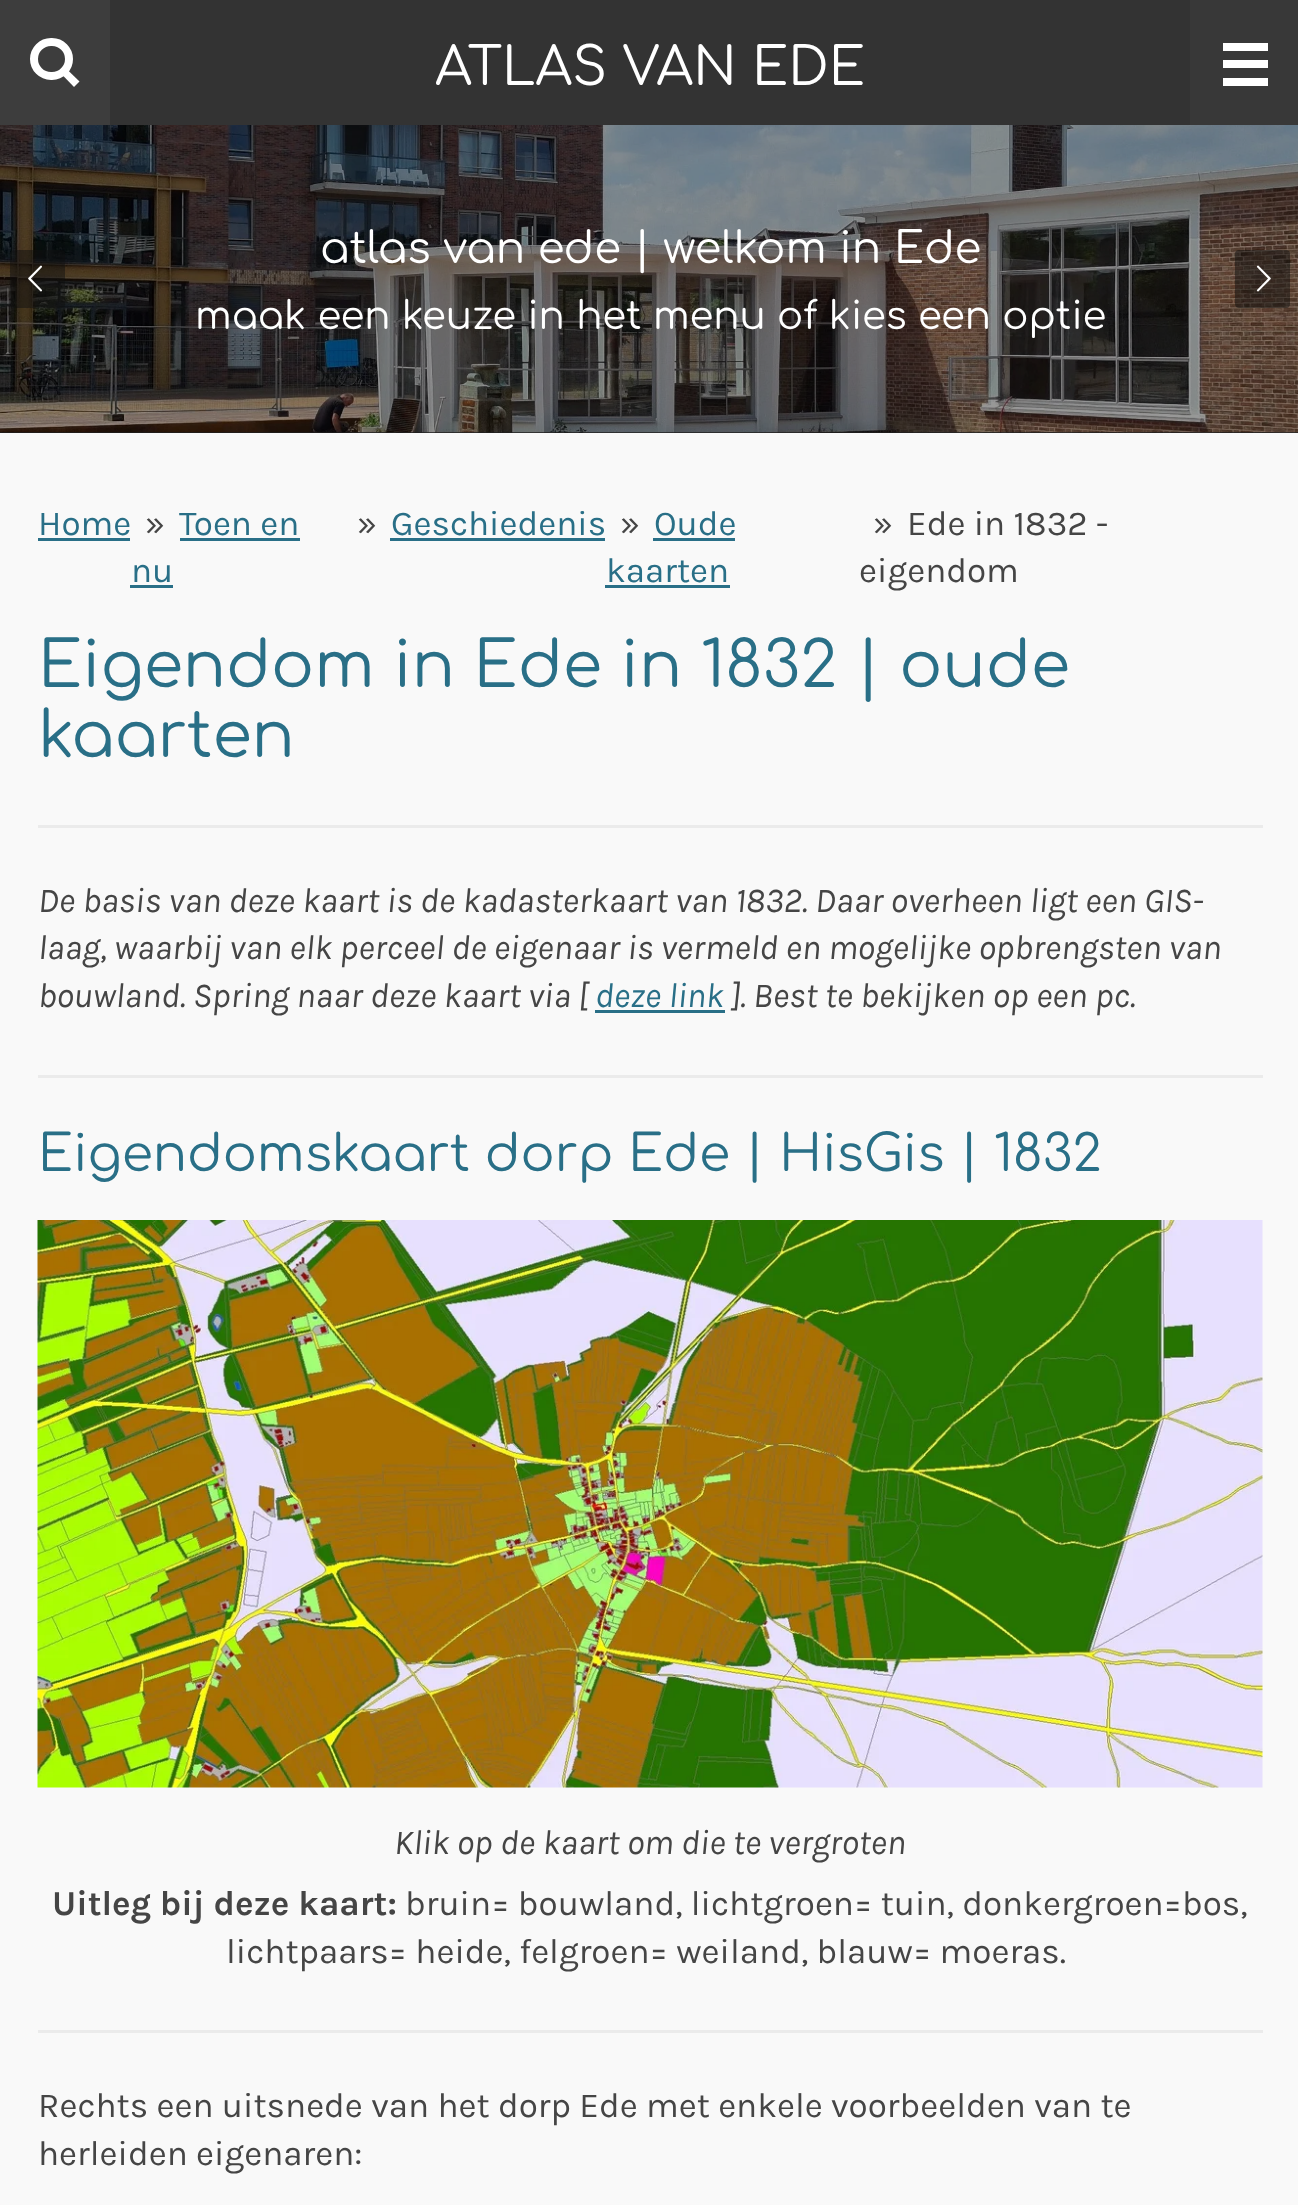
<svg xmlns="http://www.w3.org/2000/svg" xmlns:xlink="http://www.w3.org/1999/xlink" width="1298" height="2205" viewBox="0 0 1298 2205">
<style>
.cls-1{font:52.5px Comfortaa;fill:#ffffff}
.cls-2{font:43.4px Comfortaa;fill:#ffffff}
.cls-3{font:38.7px Comfortaa;fill:#ffffff}
.cls-4{font:35px Karla;fill:#296f87}
.cls-5{font:35px Karla;fill:#454545}
.cls-6{font:63.75px Comfortaa;fill:#296f87}
.cls-7{font:italic 35px Karla;fill:#454545}
.cls-8{font:italic 35px Karla;fill:#296f87}
.cls-9{font:50.5px Comfortaa;fill:#296f87}
.cls-10{font:bold 35px Karla;fill:#454545}
</style>
<rect width="100%" height="100%" fill="#333333"/>
<rect fill="#1f1f1f" x="0" y="432" width="1298" height="1"/>
<rect fill="#3d3d3d" x="0" y="0" width="110" height="125"/>
<rect fill="none" stroke="#ffffff" stroke-width="8" x="34" y="42" width="35" height="34" rx="17"/>
<path fill="#ffffff" d="M63.5 66L79.5 81.5L74 87L58.5 71Z"/>
<rect fill="#383838" x="1190" y="0" width="108" height="125"/>
<rect fill="#ffffff" x="1223" y="60" width="45" height="8"/>
<rect fill="#ffffff" x="1223" y="43" width="45" height="8"/>
<rect fill="#ffffff" x="1223" y="78" width="45" height="8"/>
<image xlink:href="image0.png" x="0" y="125" width="1298" height="308"/>
<rect fill="#0f0f0f" fill-opacity="0.5" x="10" y="250" width="55" height="58" rx="4"/>
<image xlink:href="image1.png" x="28" y="265" width="14" height="27"/>
<rect fill="#0f0f0f" fill-opacity="0.5" x="1235" y="250" width="55" height="58" rx="4"/>
<image xlink:href="image2.png" x="1256" y="265" width="15" height="27"/>
<rect fill="#f9f9f9" x="0" y="433" width="1298" height="1772"/>
<rect fill="#296f87" x="38" y="538" width="92" height="3"/>
<rect fill="#296f87" x="180" y="538" width="120" height="3"/>
<rect fill="#296f87" x="130" y="585" width="43" height="3"/>
<rect fill="#296f87" x="390" y="538" width="215" height="3"/>
<rect fill="#296f87" x="653" y="538" width="82" height="3"/>
<rect fill="#296f87" x="605" y="585" width="125" height="3"/>
<rect fill="#ebebeb" x="38" y="825" width="1225" height="3"/>
<rect fill="#296f87" x="595" y="1010" width="130" height="3"/>
<rect fill="#ebebeb" x="38" y="1075" width="1225" height="3"/>
<image xlink:href="image3.png" x="37" y="1220" width="1226" height="568"/>
<rect fill="#ebebeb" x="38" y="2030" width="1225" height="3"/>
<text class="cls-1" x="435" y="85">ATLAS VAN EDE</text>
<text class="cls-2" x="320" y="263">atlas van ede | welkom in Ede</text>
<text class="cls-3" x="195" y="329">maak een keuze in het menu of kies een optie</text>
<text class="cls-4" x="38" y="535">Home</text>
<text class="cls-5" x="145" y="535">»</text>
<text class="cls-4" x="179" y="535">Toen en</text>
<text class="cls-4" x="131" y="582">nu</text>
<text class="cls-5" x="357" y="535">»</text>
<text class="cls-4" x="391" y="535">Geschiedenis</text>
<text class="cls-5" x="620" y="535">»</text>
<text class="cls-4" x="654" y="535">Oude</text>
<text class="cls-4" x="606" y="582">kaarten</text>
<text class="cls-5" x="873" y="535">»</text>
<text class="cls-5" x="907" y="535">Ede in 1832 -</text>
<text class="cls-5" x="859" y="582">eigendom</text>
<text class="cls-6"><tspan x="38" y="687">Eigendom in Ede in 1832 | oude</tspan><tspan x="38" y="757">kaarten</tspan></text>
<text class="cls-7"><tspan x="38" y="912">De basis van deze kaart is de kadasterkaart van 1832. Daar overheen ligt een GIS-</tspan><tspan x="38" y="959">laag, waarbij van elk perceel de eigenaar is vermeld en mogelijke opbrengsten van</tspan><tspan x="38" y="1007">bouwland. Spring naar deze kaart via [</tspan></text>
<text class="cls-8" x="595" y="1007">deze link</text>
<text class="cls-7" x="731" y="1007">]. Best te bekijken op een pc.</text>
<text class="cls-9" x="38" y="1171">Eigendomskaart dorp Ede | HisGis | 1832</text>
<text class="cls-7" x="394" y="1854">Klik op de kaart om die te vergroten</text>
<text class="cls-10" x="52" y="1915">Uitleg bij deze kaart:</text>
<text class="cls-5" x="405" y="1915">bruin= bouwland, lichtgroen= tuin, donkergroen=bos,</text>
<text class="cls-5" x="226" y="1963">lichtpaars= heide, felgroen= weiland, blauw= moeras.</text>
<text class="cls-5"><tspan x="38" y="2117">Rechts een uitsnede van het dorp Ede met enkele voorbeelden van te</tspan><tspan x="38" y="2165">herleiden eigenaren:</tspan></text>
</svg>
